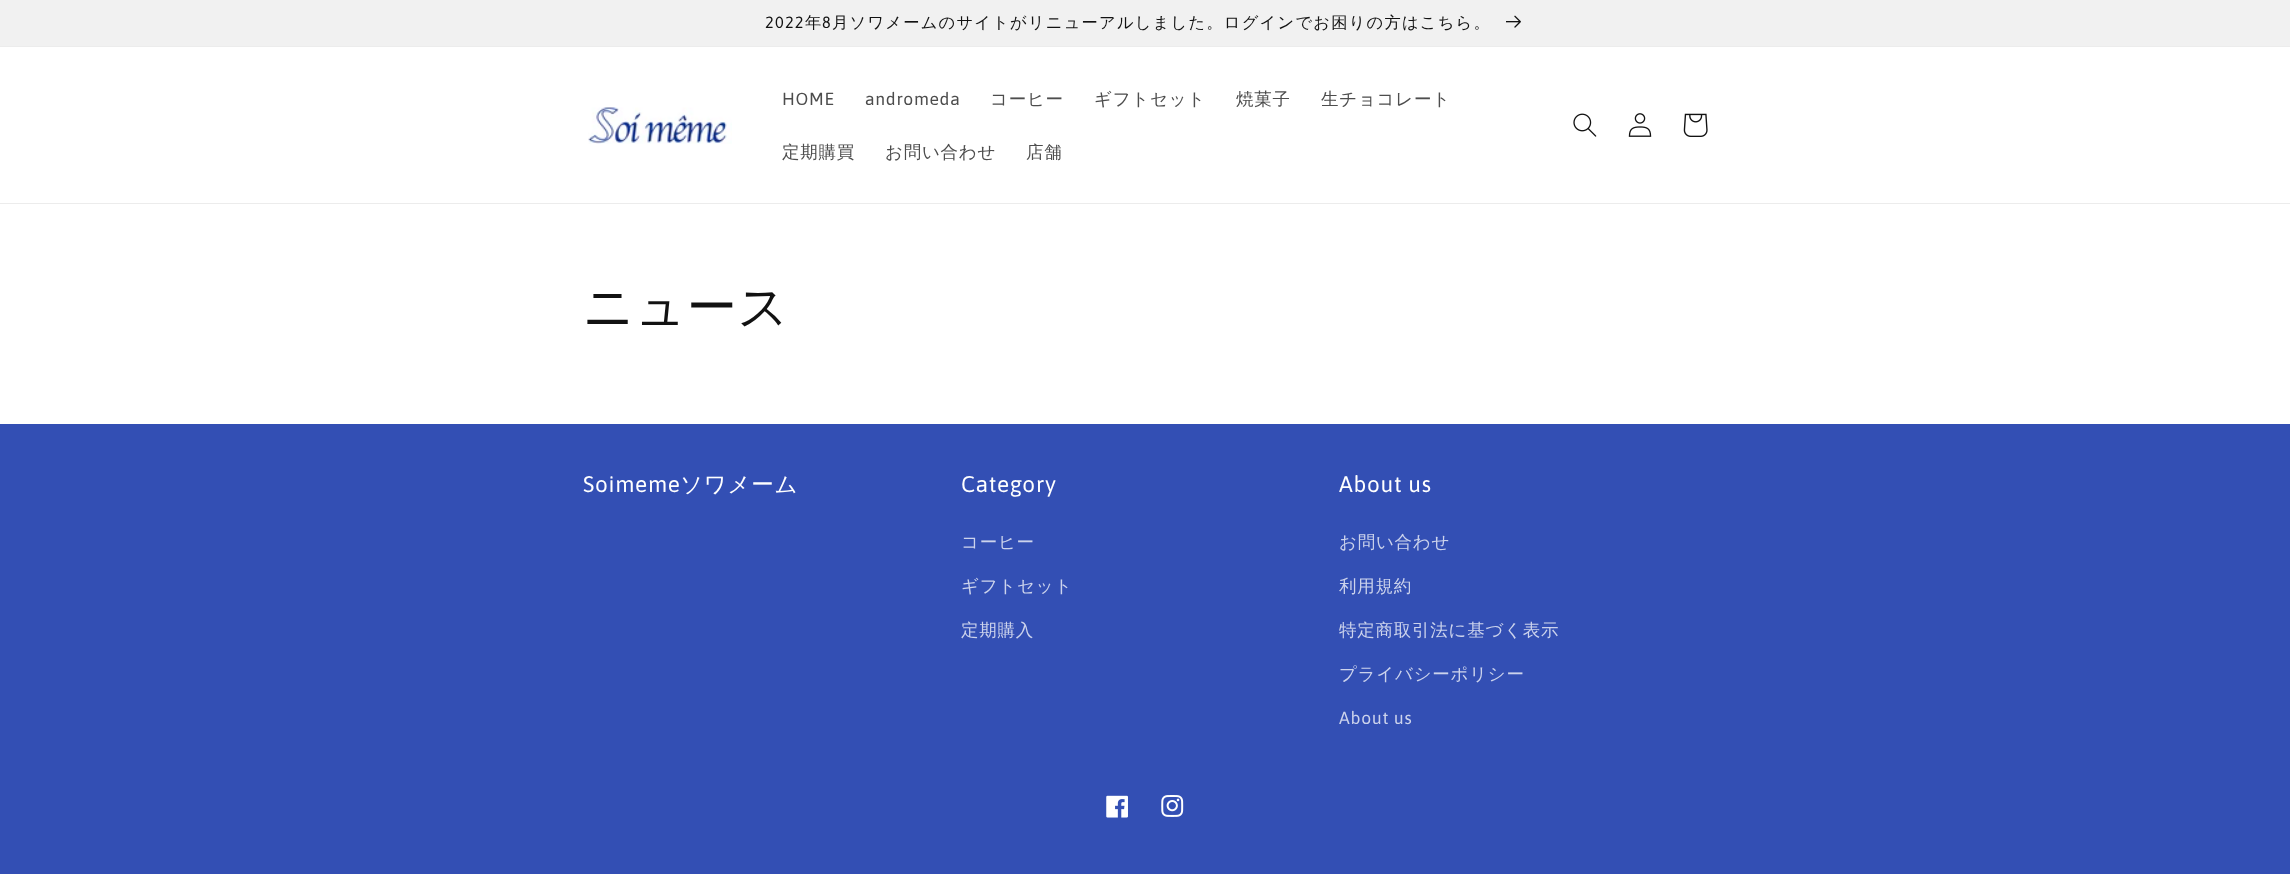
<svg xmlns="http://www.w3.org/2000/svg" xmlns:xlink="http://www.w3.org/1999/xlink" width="2290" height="874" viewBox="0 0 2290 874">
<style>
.cls-1{font:16.25px Asap;letter-spacing:1.25px;fill:#121212}
.cls-2{font:500 16.25px WenQuanYi Zen Hei;letter-spacing:1.25px;fill:#121212}
.cls-3{font:17.5px Asap;letter-spacing:0.75px;fill:#4d4d4d}
.cls-4{font:500 17.5px WenQuanYi Zen Hei;letter-spacing:0.75px;fill:#4d4d4d}
.cls-5{font:500 50px WenQuanYi Zen Hei;letter-spacing:0.75px;fill:#121212}
.cls-6{font:22.5px Asap;letter-spacing:0.75px;fill:#ffffff}
.cls-7{font:500 22.5px WenQuanYi Zen Hei;letter-spacing:0.75px;fill:#ffffff}
.cls-8{font:500 17.5px WenQuanYi Zen Hei;letter-spacing:0.75px;fill:#ccd3ec}
.cls-9{font:17.5px Asap;letter-spacing:0.75px;fill:#ccd3ec}
</style>
<rect width="100%" height="100%" fill="#ffffff"/>
<rect fill="#ececec" x="0" y="46" width="2290" height="1"/>
<rect fill="#f1f1f1" x="0" y="0" width="2290" height="46"/>
<image xlink:href="image0.png" x="1506" y="15" width="15" height="13"/>
<rect fill="#ececec" x="0" y="203" width="2290" height="1"/>
<image xlink:href="image1.png" x="588" y="107" width="144" height="37"/>
<image xlink:href="image2.png" x="1573" y="113" width="24" height="24"/>
<image xlink:href="image3.png" x="1628" y="113" width="24" height="24"/>
<image xlink:href="image4.png" x="1683" y="113" width="25" height="24"/>
<rect fill="#334fb4" x="0" y="424" width="2290" height="450"/>
<image xlink:href="image5.png" x="1106" y="795" width="22" height="23"/>
<image xlink:href="image6.png" x="1161" y="795" width="23" height="22"/>
<text class="cls-1" x="765" y="28">2022</text>
<text class="cls-2" x="805" y="28">年</text>
<text class="cls-1" x="822" y="28">8</text>
<text class="cls-2" x="832" y="28">月ソワメームのサイトがリニューアルしました。ログインでお困りの方はこちら。</text>
<text class="cls-3" x="782" y="105">HOME</text>
<text class="cls-3" x="865" y="105">andromeda</text>
<text class="cls-4" x="990" y="105">コーヒー</text>
<text class="cls-4" x="1094" y="105">ギフトセット</text>
<text class="cls-4" x="1236" y="105">焼菓子</text>
<text class="cls-4" x="1321" y="105">生チョコレート</text>
<text class="cls-4" x="782" y="158">定期購買</text>
<text class="cls-4" x="885" y="158">お問い合わせ</text>
<text class="cls-4" x="1026" y="158">店舗</text>
<text class="cls-5" x="583" y="324">ニュース</text>
<text class="cls-6" x="583" y="492">Soimeme</text>
<text class="cls-7" x="680" y="492">ソワメーム</text>
<text class="cls-6" x="961" y="492">Category</text>
<text class="cls-8" x="961" y="548">コーヒー</text>
<text class="cls-8" x="961" y="592">ギフトセット</text>
<text class="cls-8" x="961" y="636">定期購入</text>
<text class="cls-6" x="1339" y="492">About us</text>
<text class="cls-8" x="1339" y="548">お問い合わせ</text>
<text class="cls-8" x="1339" y="592">利用規約</text>
<text class="cls-8" x="1339" y="636">特定商取引法に基づく表示</text>
<text class="cls-8" x="1339" y="680">プライバシーポリシー</text>
<text class="cls-9" x="1339" y="724">About us</text>
</svg>
